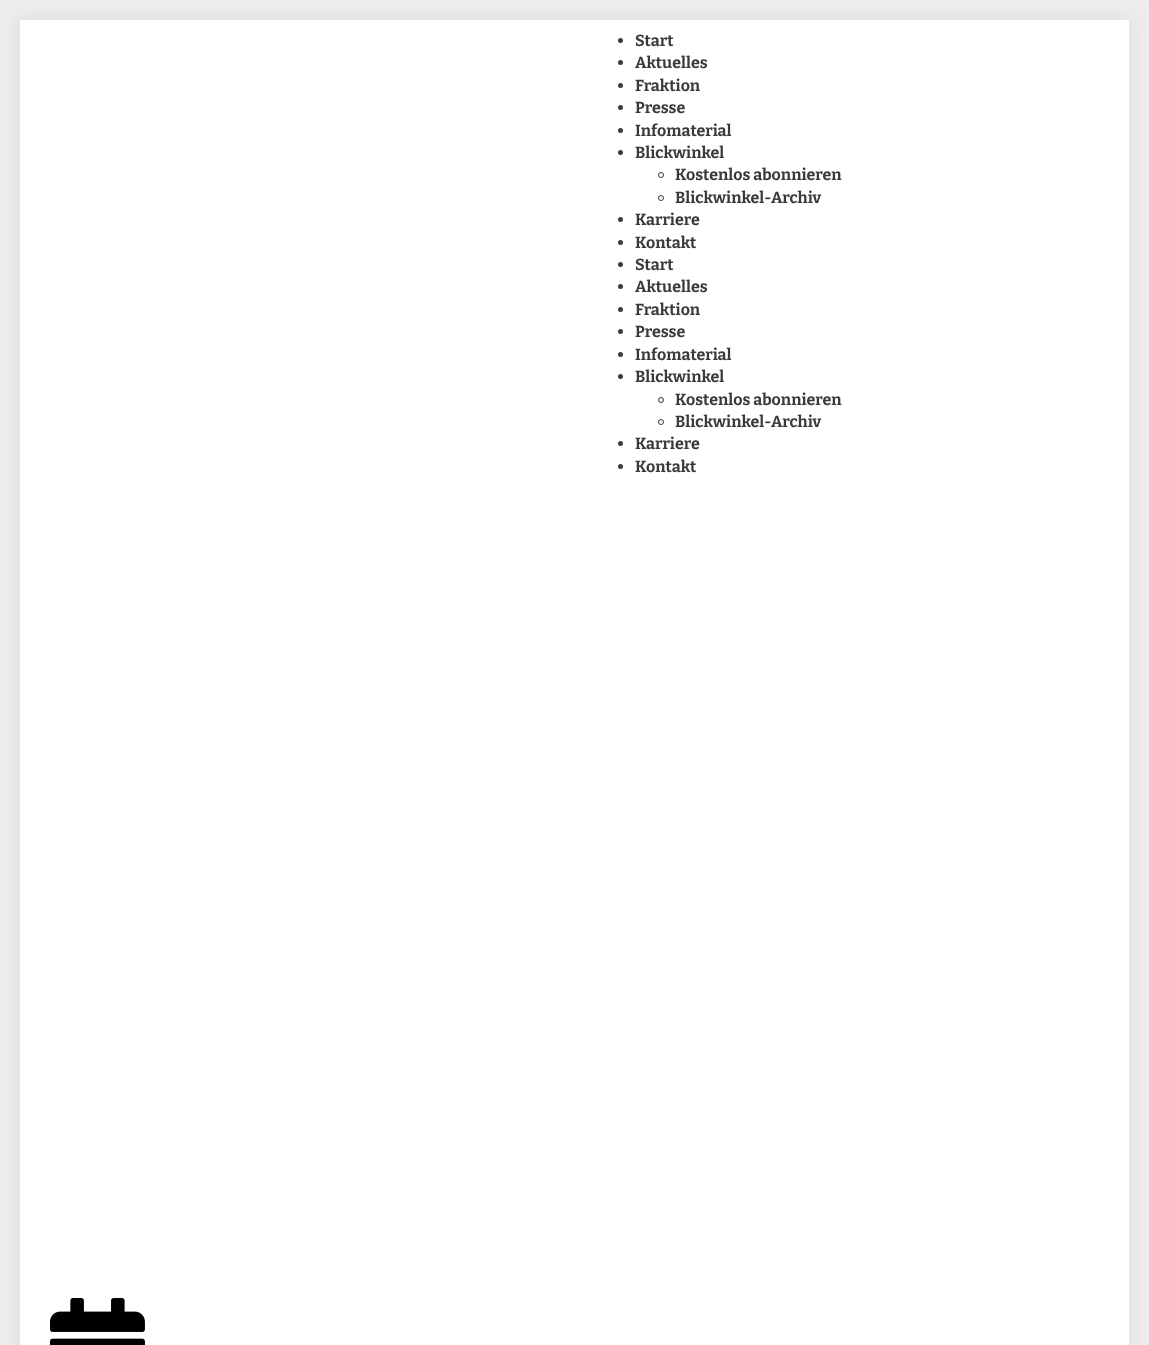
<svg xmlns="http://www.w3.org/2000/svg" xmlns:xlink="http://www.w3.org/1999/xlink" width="1149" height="1345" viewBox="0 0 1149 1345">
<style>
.cls-1{font:bold 16px Bitter;fill:#3a3a3a}
</style>
<rect width="100%" height="100%" fill="#eeeeee"/>
<rect fill="#000000" fill-opacity="0.05" filter="blur(10px)" x="15" y="15" width="1119" height="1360"/>
<rect fill="#ffffff" x="20" y="20" width="1109" height="1325"/>
<circle fill="#3a3a3a" cx="620.5" cy="40.5" r="2.5"/>
<circle fill="#3a3a3a" cx="620.5" cy="62.5" r="2.5"/>
<circle fill="#3a3a3a" cx="620.5" cy="85.5" r="2.5"/>
<circle fill="#3a3a3a" cx="620.5" cy="107.5" r="2.5"/>
<circle fill="#3a3a3a" cx="620.5" cy="130.5" r="2.5"/>
<circle fill="#3a3a3a" cx="620.5" cy="152.5" r="2.5"/>
<circle fill="none" stroke="#3a3a3a" cx="661" cy="175" r="2.5"/>
<circle fill="none" stroke="#3a3a3a" cx="661" cy="198" r="2.5"/>
<circle fill="#3a3a3a" cx="620.5" cy="219.5" r="2.5"/>
<circle fill="#3a3a3a" cx="620.5" cy="242.5" r="2.5"/>
<circle fill="#3a3a3a" cx="620.5" cy="264.5" r="2.5"/>
<circle fill="#3a3a3a" cx="620.5" cy="286.5" r="2.5"/>
<circle fill="#3a3a3a" cx="620.5" cy="309.5" r="2.5"/>
<circle fill="#3a3a3a" cx="620.5" cy="331.5" r="2.5"/>
<circle fill="#3a3a3a" cx="620.5" cy="354.5" r="2.5"/>
<circle fill="#3a3a3a" cx="620.5" cy="376.5" r="2.5"/>
<circle fill="none" stroke="#3a3a3a" cx="661" cy="400" r="2.5"/>
<circle fill="none" stroke="#3a3a3a" cx="661" cy="422" r="2.5"/>
<circle fill="#3a3a3a" cx="620.5" cy="443.5" r="2.5"/>
<circle fill="#3a3a3a" cx="620.5" cy="466.5" r="2.5"/>
<image xlink:href="image0.png" x="50" y="1298" width="95" height="47"/>
<text class="cls-1"><tspan x="635" y="46">Start</tspan><tspan x="635" y="68">Aktuelles</tspan><tspan x="635" y="91">Fraktion</tspan><tspan x="635" y="113">Presse</tspan><tspan x="635" y="136">Infomaterial</tspan><tspan x="635" y="158">Blickwinkel</tspan></text>
<text class="cls-1"><tspan x="675" y="180">Kostenlos abonnieren</tspan><tspan x="675" y="203">Blickwinkel-Archiv</tspan></text>
<text class="cls-1"><tspan x="635" y="225">Karriere</tspan><tspan x="635" y="248">Kontakt</tspan><tspan x="635" y="270">Start</tspan><tspan x="635" y="292">Aktuelles</tspan><tspan x="635" y="315">Fraktion</tspan><tspan x="635" y="337">Presse</tspan><tspan x="635" y="360">Infomaterial</tspan><tspan x="635" y="382">Blickwinkel</tspan></text>
<text class="cls-1"><tspan x="675" y="405">Kostenlos abonnieren</tspan><tspan x="675" y="427">Blickwinkel-Archiv</tspan></text>
<text class="cls-1"><tspan x="635" y="449">Karriere</tspan><tspan x="635" y="472">Kontakt</tspan></text>
</svg>
